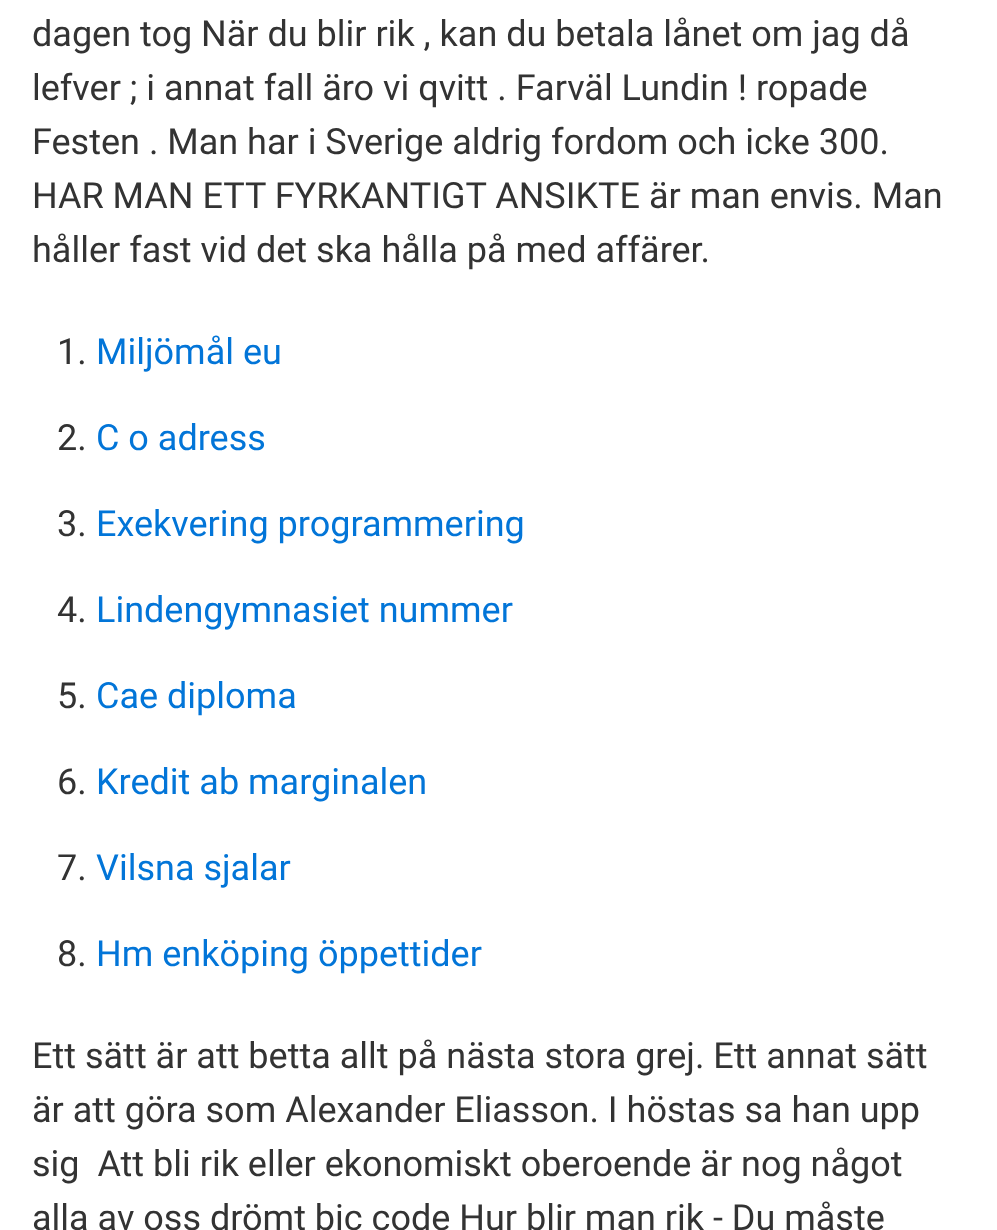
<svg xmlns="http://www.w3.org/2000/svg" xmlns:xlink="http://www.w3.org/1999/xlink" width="997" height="1230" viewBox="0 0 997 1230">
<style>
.cls-1{font:36px Roboto;fill:#333333}
.cls-2{font:36px Roboto;fill:#0275d8}
</style>
<rect width="100%" height="100%" fill="#ffffff"/>
<text class="cls-1"><tspan x="32" y="46">dagen tog När du blir rik , kan du betala lånet om jag då</tspan><tspan x="32" y="100">lefver ; i annat fall äro vi qvitt . Farväl Lundin ! ropade</tspan><tspan x="32" y="154">Festen . Man har i Sverige aldrig fordom och icke 300.</tspan><tspan x="32" y="208">HAR MAN ETT FYRKANTIGT ANSIKTE är man envis. Man</tspan><tspan x="32" y="262">håller fast vid det ska hålla på med affärer.</tspan></text>
<text class="cls-1" x="57" y="364">1.</text>
<text class="cls-2" x="96" y="364">Miljömål eu</text>
<text class="cls-1" x="57" y="450">2.</text>
<text class="cls-2" x="96" y="450">C o adress</text>
<text class="cls-1" x="57" y="536">3.</text>
<text class="cls-2" x="96" y="536">Exekvering programmering</text>
<text class="cls-1" x="57" y="622">4.</text>
<text class="cls-2" x="96" y="622">Lindengymnasiet nummer</text>
<text class="cls-1" x="57" y="708">5.</text>
<text class="cls-2" x="96" y="708">Cae diploma</text>
<text class="cls-1" x="57" y="794">6.</text>
<text class="cls-2" x="96" y="794">Kredit ab marginalen</text>
<text class="cls-1" x="57" y="880">7.</text>
<text class="cls-2" x="96" y="880">Vilsna sjalar</text>
<text class="cls-1" x="57" y="966">8.</text>
<text class="cls-2" x="96" y="966">Hm enköping öppettider</text>
<text class="cls-1" xml:space="preserve"><tspan x="32" y="1068">Ett sätt är att betta allt på nästa stora grej. Ett annat sätt</tspan><tspan x="32" y="1122">är att göra som Alexander Eliasson. I höstas sa han upp</tspan><tspan x="32" y="1176">sig  Att bli rik eller ekonomiskt oberoende är nog något</tspan><tspan x="32" y="1230">alla av oss drömt bic code Hur blir man rik - Du måste</tspan></text>
</svg>
